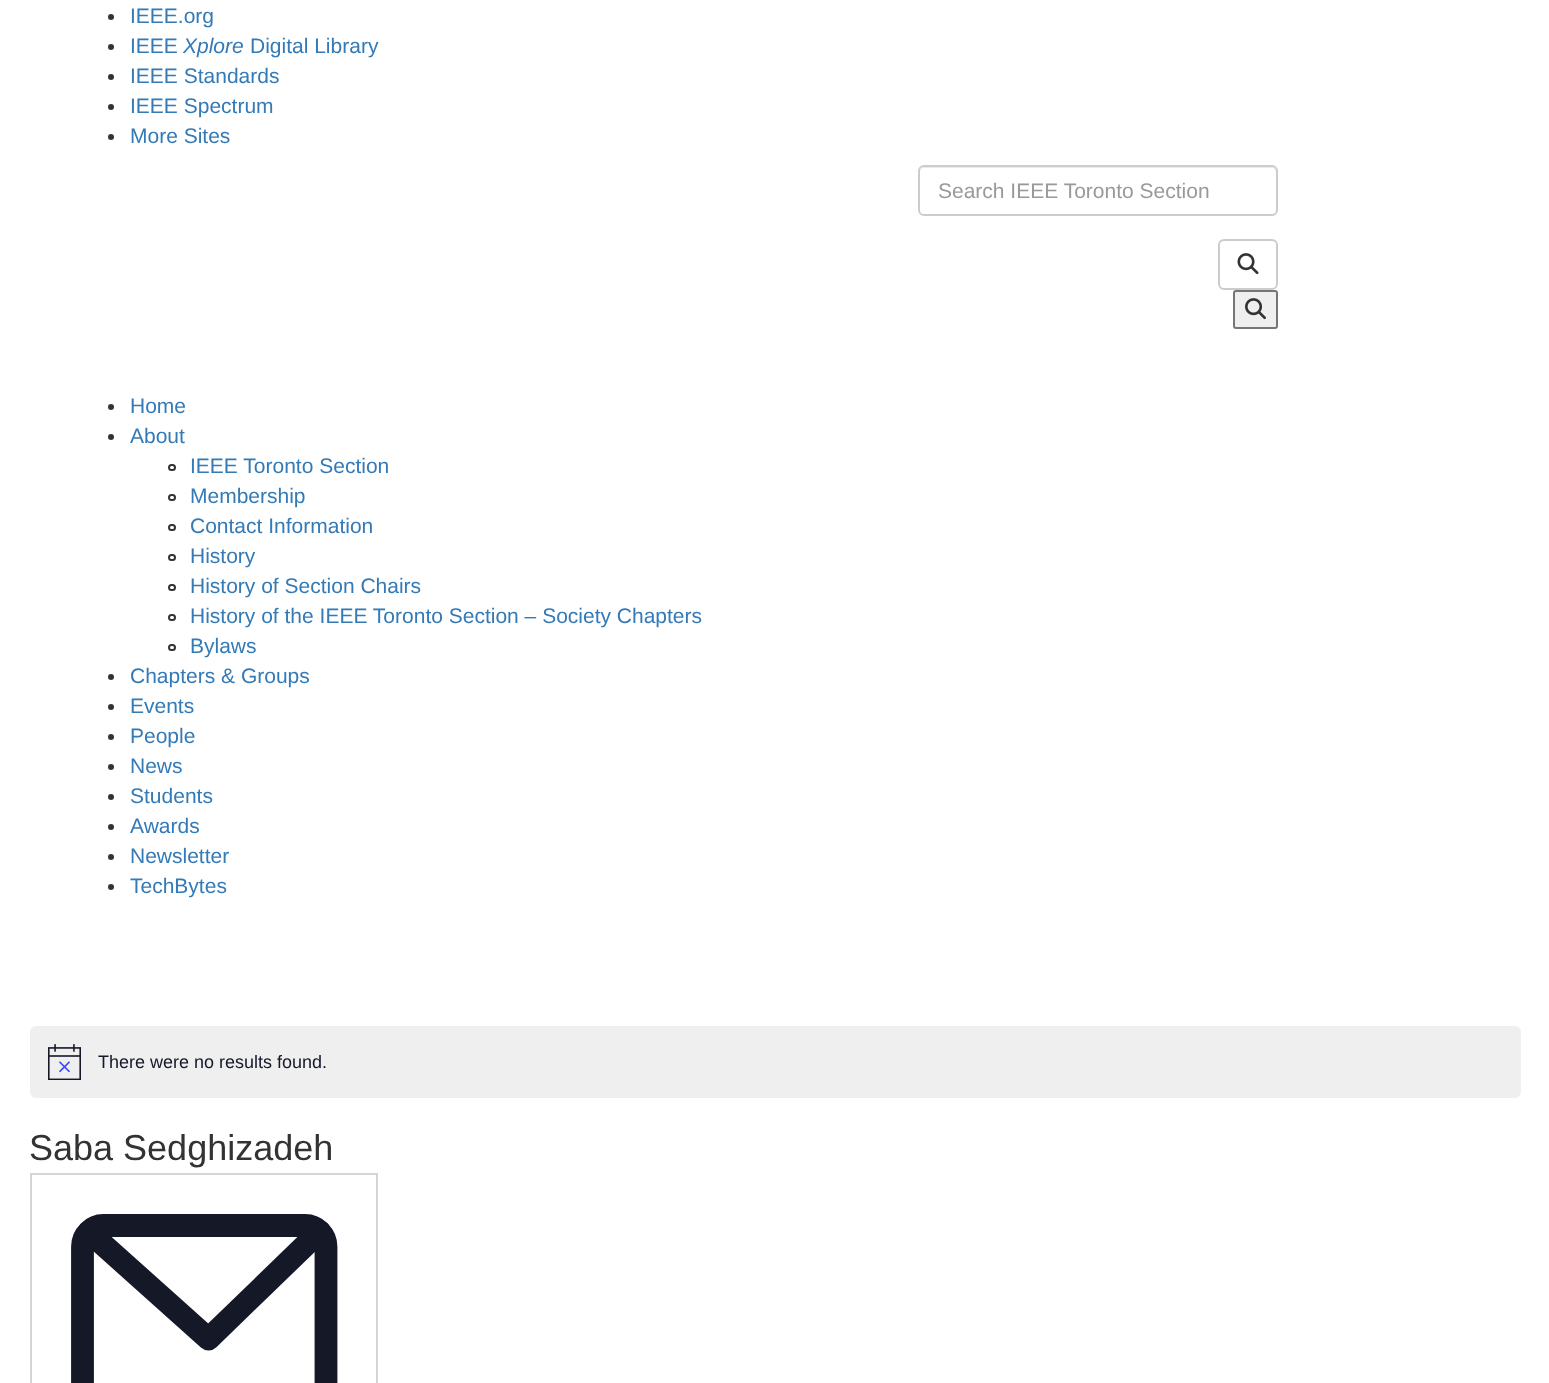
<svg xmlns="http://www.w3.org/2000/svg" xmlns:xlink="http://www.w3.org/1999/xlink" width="1549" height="1383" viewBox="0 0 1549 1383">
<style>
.cls-1{font:21px Liberation Sans;fill:#337ab7}
.cls-2{font:italic 21px Liberation Sans;fill:#337ab7}
.cls-3{font:21px Liberation Sans;fill:#999999}
.cls-4{font:18px Liberation Sans;fill:#141827}
.cls-5{font:36px Liberation Sans;fill:#333333}
</style>
<rect width="100%" height="100%" fill="#ffffff"/>
<circle fill="#333333" cx="111" cy="17" r="3"/>
<circle fill="#333333" cx="111" cy="47" r="3"/>
<circle fill="#333333" cx="111" cy="77" r="3"/>
<circle fill="#333333" cx="111" cy="107" r="3"/>
<circle fill="#333333" cx="111" cy="137" r="3"/>
<path fill="#ececec" d="M924 168H1272C1274 168 1276 170 1276 172V213C1277 212 1277 211 1277 210V172C1277 169 1275 167 1272 167H925C922 167 920 169 920 172C920 170 922 168 924 168Z"/>
<rect fill="none" stroke="#cccccc" stroke-width="2" x="919" y="166" width="358" height="49" rx="5"/>
<rect fill="none" stroke="#cccccc" stroke-width="2" x="1219" y="240" width="58" height="49" rx="5"/>
<image xlink:href="image0.png" x="1237" y="253" width="22" height="22"/>
<rect fill="#efefef" stroke="#767676" stroke-width="2" x="1234" y="291" width="43" height="37" rx="2"/>
<image xlink:href="image1.png" x="1245" y="298" width="21" height="22"/>
<circle fill="#333333" cx="111" cy="407" r="3"/>
<circle fill="#333333" cx="111" cy="437" r="3"/>
<rect fill="none" stroke="#333333" stroke-width="2" x="169" y="465" width="6" height="5" rx="2.5"/>
<rect fill="none" stroke="#333333" stroke-width="2" x="169" y="495" width="6" height="5" rx="2.5"/>
<rect fill="none" stroke="#333333" stroke-width="2" x="169" y="525" width="6" height="5" rx="2.5"/>
<rect fill="none" stroke="#333333" stroke-width="2" x="169" y="555" width="6" height="5" rx="2.5"/>
<rect fill="none" stroke="#333333" stroke-width="2" x="169" y="585" width="6" height="5" rx="2.5"/>
<rect fill="none" stroke="#333333" stroke-width="2" x="169" y="615" width="6" height="5" rx="2.5"/>
<rect fill="none" stroke="#333333" stroke-width="2" x="169" y="645" width="6" height="5" rx="2.5"/>
<circle fill="#333333" cx="111" cy="677" r="3"/>
<circle fill="#333333" cx="111" cy="707" r="3"/>
<circle fill="#333333" cx="111" cy="737" r="3"/>
<circle fill="#333333" cx="111" cy="767" r="3"/>
<circle fill="#333333" cx="111" cy="797" r="3"/>
<circle fill="#333333" cx="111" cy="827" r="3"/>
<circle fill="#333333" cx="111" cy="857" r="3"/>
<circle fill="#333333" cx="111" cy="887" r="3"/>
<rect fill="#efeff0" x="30" y="1026" width="1491" height="72" rx="6"/>
<image xlink:href="image2.png" x="48" y="1044" width="33" height="36"/>
<rect fill="none" stroke="#d5d5d5" stroke-width="2" x="31" y="1174" width="346" height="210"/>
<path fill="none" stroke="#141827" stroke-width="22.8" stroke-linecap="round" stroke-linejoin="round" d="M89 1232L208.5 1339L319.5 1231.5"/>
<path fill="none" stroke="#141827" stroke-width="22.8" stroke-linecap="round" stroke-linejoin="round" d="M82.5 1246.5V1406C82.5 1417.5 92 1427 103.5 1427H305C316.5 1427 326 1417.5 326 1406V1246.5C326 1235 316.5 1225.5 305 1225.5H103.5C92 1225.5 82.5 1235 82.5 1246.5Z"/>
<text class="cls-1"><tspan x="130" y="23">IEEE.org</tspan><tspan x="130" y="53">IEEE</tspan></text>
<text class="cls-2" x="183" y="53">Xplore</text>
<text class="cls-1" x="250" y="53">Digital Library</text>
<text class="cls-1"><tspan x="130" y="83">IEEE Standards</tspan><tspan x="130" y="113">IEEE Spectrum</tspan><tspan x="130" y="143">More Sites</tspan></text>
<text class="cls-3" x="938" y="198">Search IEEE Toronto Section</text>
<text class="cls-1"><tspan x="130" y="413">Home</tspan><tspan x="130" y="443">About</tspan></text>
<text class="cls-1"><tspan x="190" y="473">IEEE Toronto Section</tspan><tspan x="190" y="503">Membership</tspan><tspan x="190" y="533">Contact Information</tspan><tspan x="190" y="563">History</tspan><tspan x="190" y="593">History of Section Chairs</tspan><tspan x="190" y="623">History of the IEEE Toronto Section – Society Chapters</tspan><tspan x="190" y="653">Bylaws</tspan></text>
<text class="cls-1"><tspan x="130" y="683">Chapters &amp; Groups</tspan><tspan x="130" y="713">Events</tspan><tspan x="130" y="743">People</tspan><tspan x="130" y="773">News</tspan><tspan x="130" y="803">Students</tspan><tspan x="130" y="833">Awards</tspan><tspan x="130" y="863">Newsletter</tspan><tspan x="130" y="893">TechBytes</tspan></text>
<text class="cls-4" x="98" y="1068">There were no results found.</text>
<text class="cls-5" x="29" y="1160">Saba Sedghizadeh</text>
</svg>
